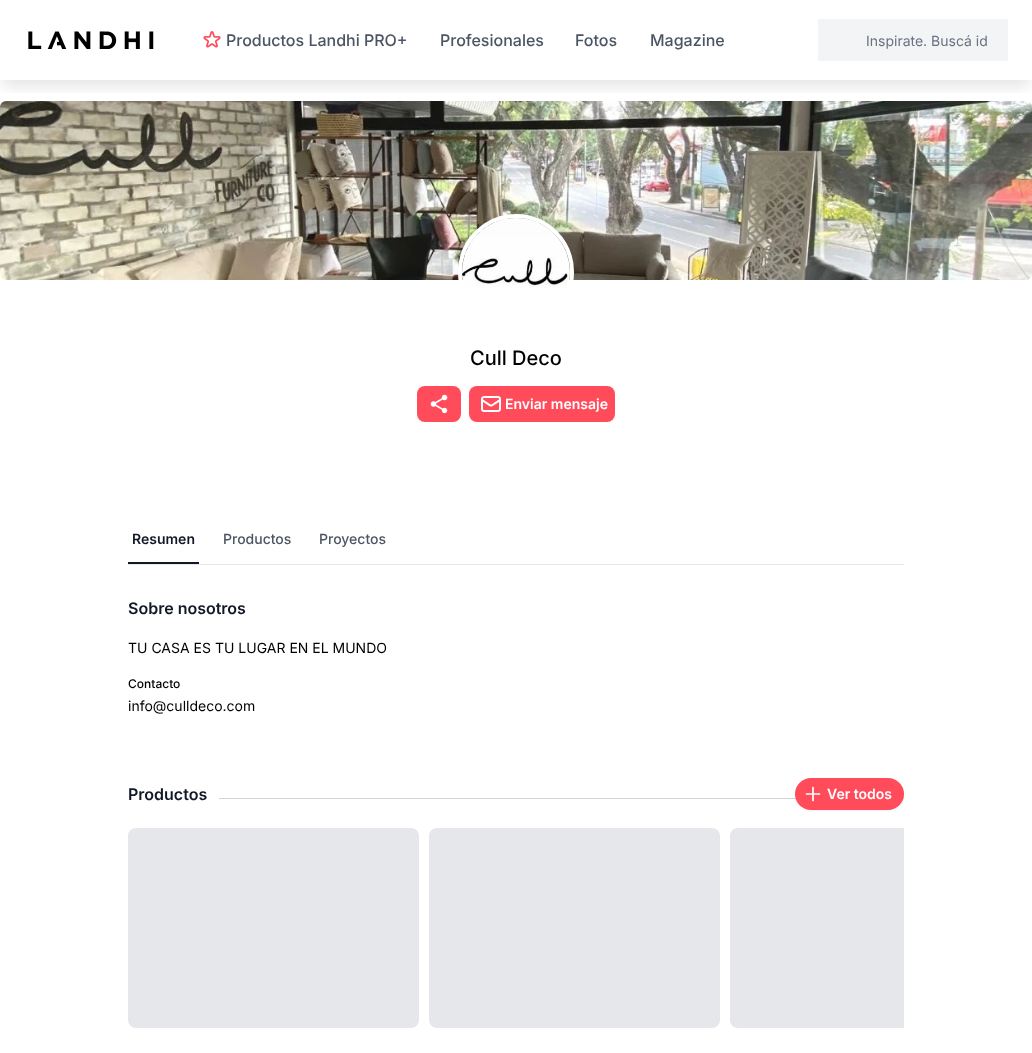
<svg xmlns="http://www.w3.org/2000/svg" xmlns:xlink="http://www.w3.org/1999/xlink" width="1032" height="1053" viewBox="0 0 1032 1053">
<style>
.cls-1{font:500 16px Inter;fill:#4b5563}
.cls-2{font:14px Inter;fill:#6b7280}
.cls-3{font:500 20px Inter;fill:#000000}
.cls-4{font:600 14px Inter;fill:#ffffff}
.cls-5{font:600 14px Inter;fill:#111827}
.cls-6{font:500 14px Inter;fill:#4b5563}
.cls-7{font:600 16px Inter;fill:#111827}
.cls-8{font:14px Inter;fill:#000000}
.cls-9{font:500 12px Inter;fill:#000000}
</style>
<defs>
<clipPath id="clip1"><rect x="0" y="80" width="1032" height="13"/></clipPath>
</defs>
<rect width="100%" height="100%" fill="#ffffff"/>
<image xlink:href="image2.png" x="0" y="101" width="1032" height="179"/>
<g clip-path="url(#clip1)">
<rect fill="#000000" fill-opacity="0.1" filter="blur(7.5px)" x="3" y="13" width="1026" height="74"/>
</g>
<image xlink:href="image0.png" x="28" y="31" width="126" height="18"/>
<image xlink:href="image1.png" x="203" y="31" width="18" height="17"/>
<rect fill="#f3f4f6" x="818" y="19" width="190" height="42"/>
<circle fill="none" stroke="#ffffff" stroke-width="4" cx="516" cy="272" r="56"/>
<image xlink:href="image3.png" x="462" y="218" width="108" height="70"/>
<rect fill="#ff4b5a" x="417" y="386" width="44" height="36" rx="8"/>
<image xlink:href="image4.png" x="430" y="394" width="18" height="20"/>
<rect fill="#ff4b5a" x="469" y="386" width="146" height="36" rx="8"/>
<image xlink:href="image5.png" x="481" y="396" width="20" height="16"/>
<rect fill="#e5e7eb" x="128" y="564" width="776" height="1"/>
<rect fill="#111827" x="128" y="562" width="71" height="2"/>
<rect fill="#d1d5db" x="219" y="798" width="685" height="1"/>
<rect fill="#000000" fill-opacity="0.05" filter="blur(1px)" x="795" y="779" width="109" height="32" rx="16"/>
<rect fill="#ff4b5a" x="795" y="778" width="109" height="32" rx="16"/>
<path fill="none" stroke="#ffffff" stroke-width="1.7" stroke-linecap="round" stroke-linejoin="round" d="M813 787.5V800.5M819.5 794H806.5"/>
<rect fill="#e5e7eb" x="128" y="828" width="291" height="200" rx="8"/>
<rect fill="#e5e7eb" x="429" y="828" width="291" height="200" rx="8"/>
<path fill="#e5e7eb" d="M738 828H904V1028H738C733.5 1028 730 1024.5 730 1020V836C730 831.5 733.5 828 738 828Z"/>
<text class="cls-1" x="226" y="46">Productos Landhi PRO+</text>
<text class="cls-1" x="440" y="46">Profesionales</text>
<text class="cls-1" x="575" y="46">Fotos</text>
<text class="cls-1" x="650" y="46">Magazine</text>
<text class="cls-2" x="866" y="46">Inspirate. Buscá id</text>
<text class="cls-3" x="470" y="365">Cull Deco</text>
<text class="cls-4" x="505" y="409">Enviar mensaje</text>
<text class="cls-5" x="132" y="544">Resumen</text>
<text class="cls-6" x="223" y="544">Productos</text>
<text class="cls-6" x="319" y="544">Proyectos</text>
<text class="cls-7" x="128" y="614">Sobre nosotros</text>
<text class="cls-8" x="128" y="653">TU CASA ES TU LUGAR EN EL MUNDO</text>
<text class="cls-9" x="128" y="688">Contacto</text>
<text class="cls-8" x="128" y="711">info@culldeco.com</text>
<text class="cls-7" x="128" y="800">Productos</text>
<text class="cls-4" x="827" y="799">Ver todos</text>
</svg>
